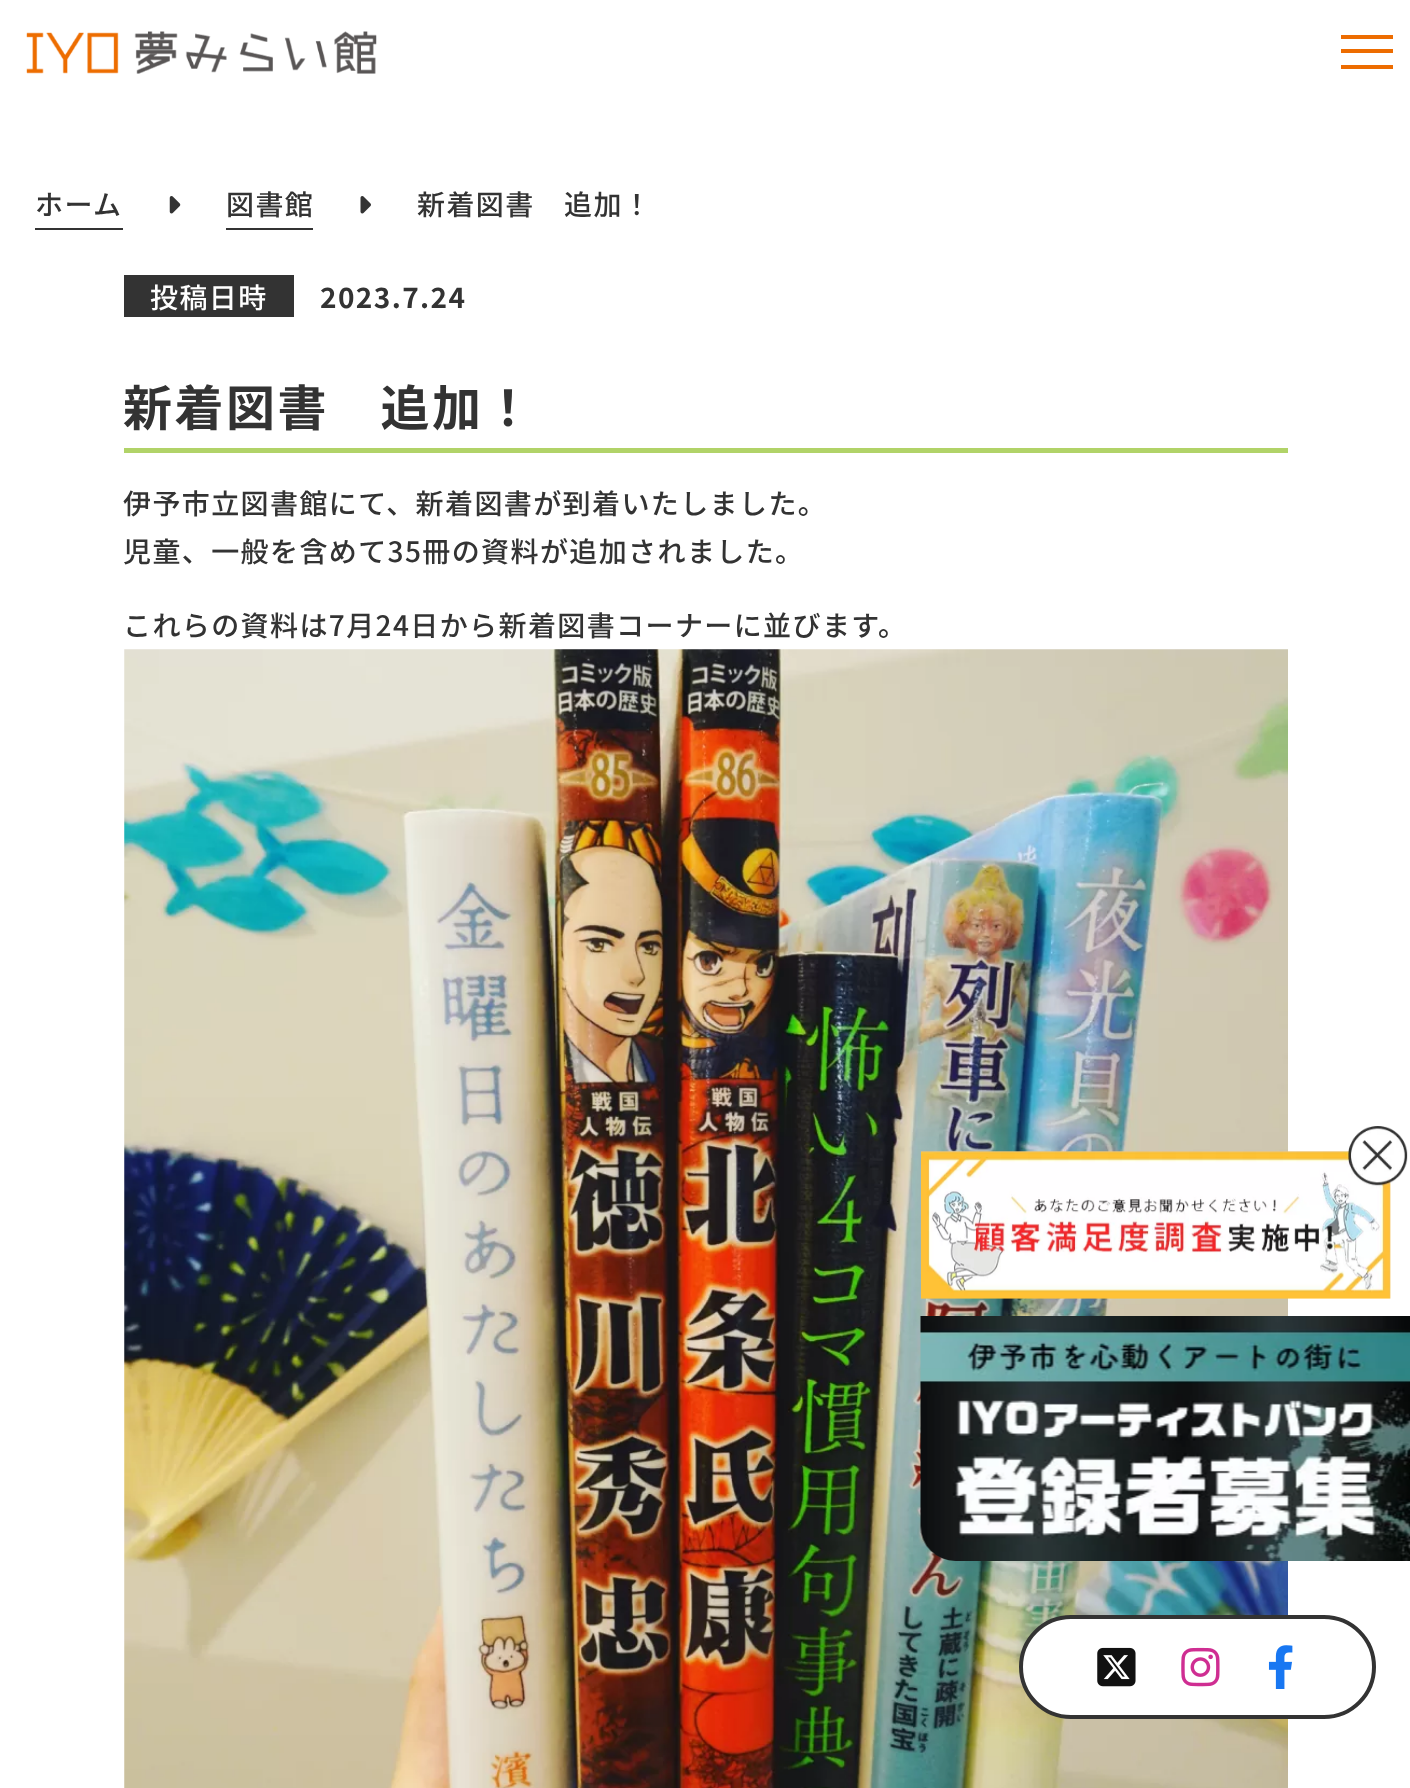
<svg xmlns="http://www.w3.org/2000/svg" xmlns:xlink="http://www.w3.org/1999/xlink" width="1410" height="1788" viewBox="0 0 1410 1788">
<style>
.cls-1{font:500 28px Noto Sans JP;letter-spacing:1.4px;fill:#333333}
.cls-2{font:500 28px Noto Sans JP;letter-spacing:1.4px;fill:#ffffff}
.cls-3{font:bold 28px Noto Sans JP;letter-spacing:1.4px;fill:#333333}
.cls-4{font:bold 49px Noto Sans JP;letter-spacing:2.5px;fill:#333333}
</style>
<rect width="100%" height="100%" fill="#ffffff"/>
<image xlink:href="image0.png" x="26" y="31" width="351" height="43"/>
<rect fill="#ed6c00" x="1341" y="49" width="52" height="4"/>
<rect fill="#ed6c00" x="1341" y="35" width="52" height="4"/>
<rect fill="#ed6c00" x="1341" y="65" width="52" height="4"/>
<rect fill="#333333" x="35" y="228" width="88" height="2"/>
<image xlink:href="image1.png" x="169" y="196" width="12" height="18"/>
<rect fill="#333333" x="226" y="228" width="87" height="2"/>
<image xlink:href="image2.png" x="360" y="196" width="11" height="18"/>
<rect fill="#333333" x="124" y="275" width="170" height="42"/>
<rect fill="#b1d368" x="124" y="448" width="1164" height="5"/>
<image xlink:href="image3.png" x="124" y="649" width="1164" height="1139"/>
<image xlink:href="image4.png" x="921" y="1126" width="487" height="173"/>
<image xlink:href="image5.png" x="920" y="1316" width="490" height="245"/>
<rect fill="#ffffff" stroke="#333333" stroke-width="4" x="1021" y="1617" width="353" height="100" rx="50"/>
<image xlink:href="image6.png" x="1097" y="1647" width="39" height="40"/>
<image xlink:href="image7.png" x="1181" y="1647" width="39" height="40"/>
<image xlink:href="image8.png" x="1268" y="1645" width="25" height="44"/>
<text class="cls-1" x="35" y="215">ホーム</text>
<text class="cls-1" x="226" y="215">図書館</text>
<text class="cls-1" x="417" y="215">新着図書　追加！</text>
<text class="cls-2" x="150" y="308">投稿日時</text>
<text class="cls-3" x="320" y="308">2023.7.24</text>
<text class="cls-4" x="123" y="426">新着図書　追加！</text>
<text class="cls-1"><tspan x="123" y="514">伊予市立図書館にて、新着図書が到着いたしました。</tspan><tspan x="123" y="562">児童、一般を含めて35冊の資料が追加されました。</tspan></text>
<text class="cls-1" x="123" y="636">これらの資料は7月24日から新着図書コーナーに並びます。</text>
</svg>
